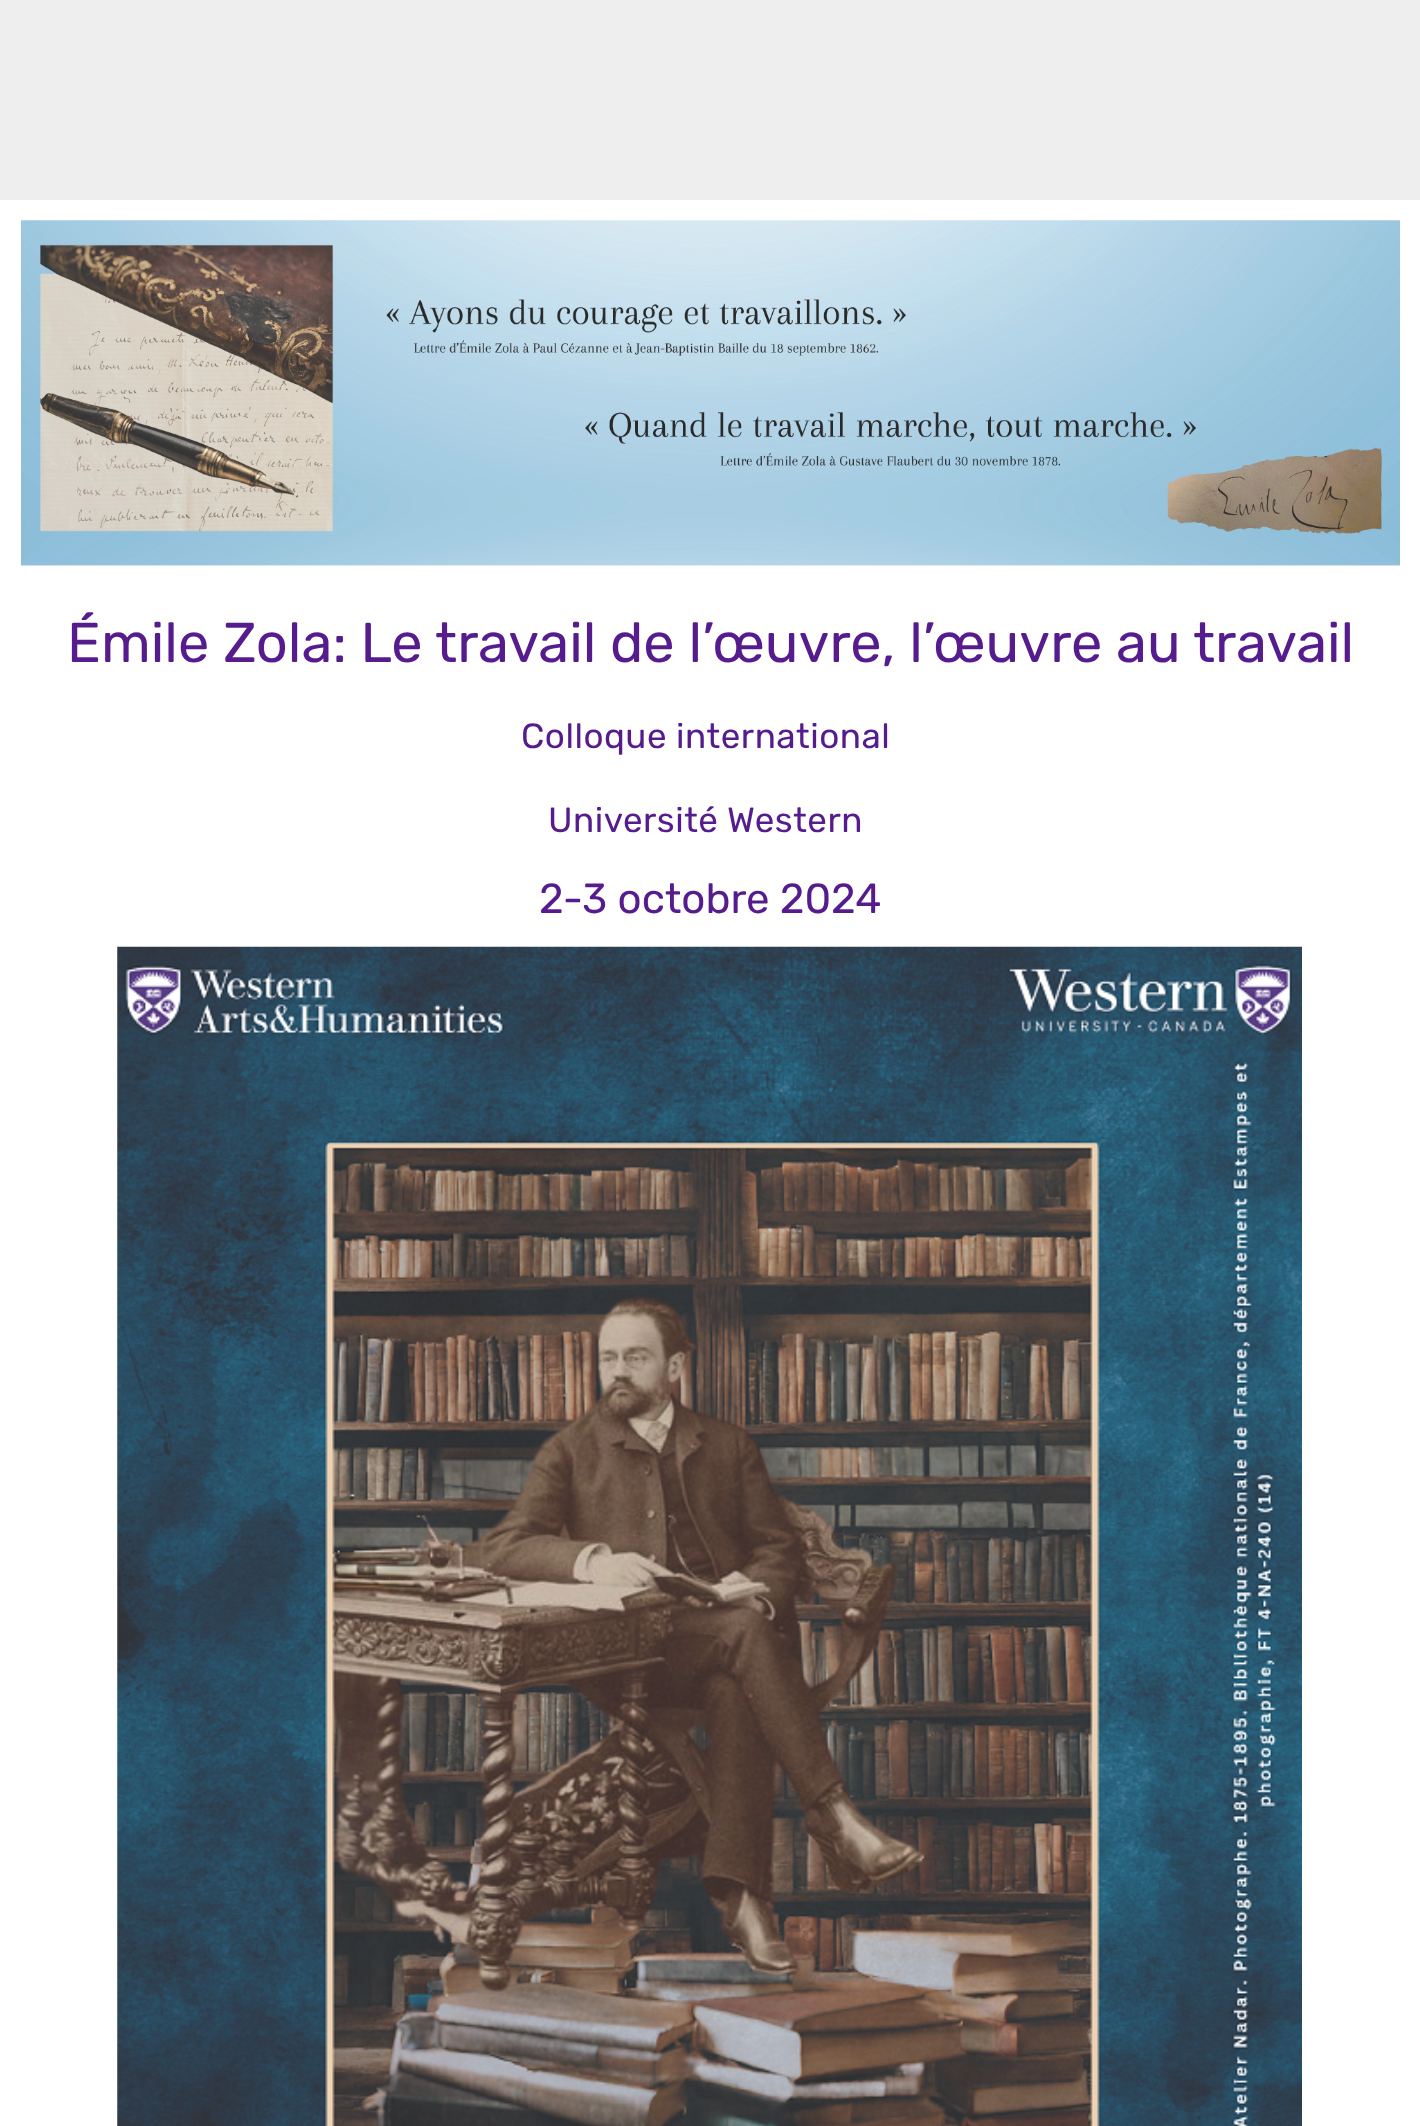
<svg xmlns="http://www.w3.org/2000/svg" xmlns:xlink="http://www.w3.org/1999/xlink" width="1420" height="2126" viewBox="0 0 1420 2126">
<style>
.cls-1{font:56px Rubik;fill:#561b8d}
.cls-2{font:35px Rubik;letter-spacing:0.5px;fill:#561b8d}
.cls-3{font:42px Rubik;fill:#561b8d}
</style>
<rect width="100%" height="100%" fill="#eeeeee"/>
<rect fill="#ffffff" x="0" y="200" width="1420" height="1926"/>
<image xlink:href="image0.png" x="21" y="220" width="1379" height="346"/>
<image xlink:href="image1.png" x="21" y="220" width="1379" height="346"/>
<image xlink:href="image2.png" x="117" y="946" width="1185" height="1180"/>
<text class="cls-1" x="67" y="662">Émile Zola: Le travail de l’œuvre, l’œuvre au travail</text>
<text class="cls-2" x="521" y="748">Colloque international</text>
<text class="cls-2" x="548" y="832">Université Western</text>
<text class="cls-3" x="539" y="913">2-3 octobre 2024</text>
</svg>
